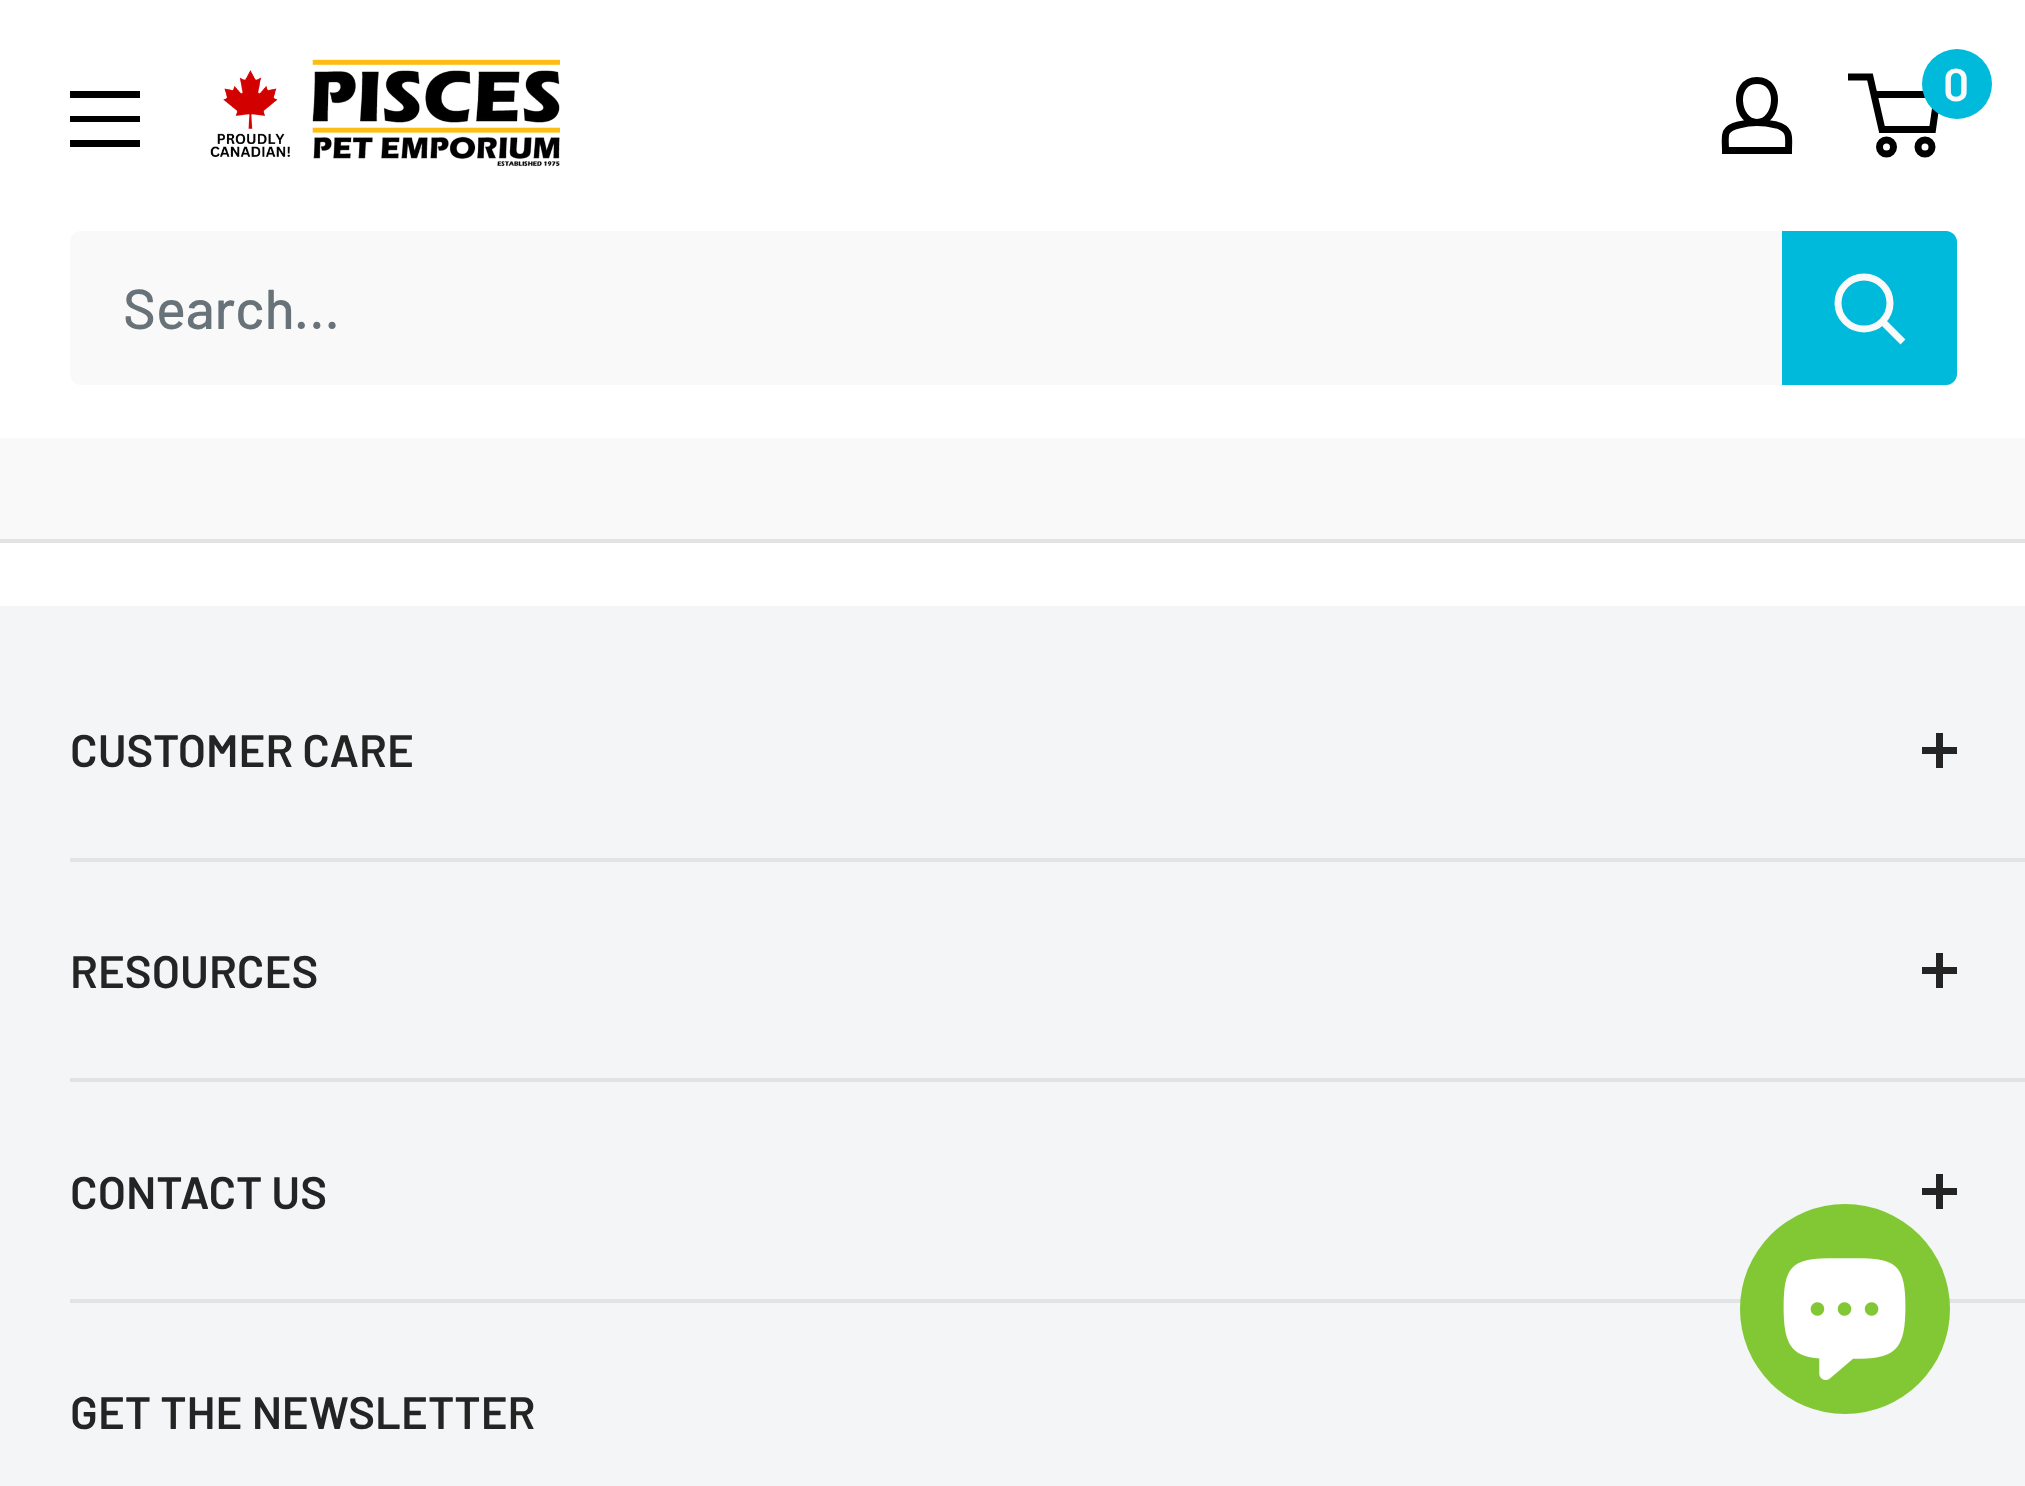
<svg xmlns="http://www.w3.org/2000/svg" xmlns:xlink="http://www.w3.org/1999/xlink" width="2025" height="1486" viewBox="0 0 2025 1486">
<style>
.cls-1{font:600 46px Barlow;fill:#f9f9f9}
.cls-2{font:500 56px Barlow;fill:#677279}
.cls-3{font:600 45.5px Barlow;fill:#242424}
</style>
<rect width="100%" height="100%" fill="#ffffff"/>
<image xlink:href="image0.png" x="210" y="59" width="350" height="108"/>
<path fill="none" stroke="#000000" stroke-width="7" d="M1757 122.5C1763.5 122.5 1770 123.5 1776.5 125C1791.5 129.5 1788.5 137.5 1788.5 150.5H1725.5C1725.5 136 1722 129 1738.5 125C1744.5 123.5 1751 122.5 1757 122.5ZM1757 122.5C1736 122.5 1731.5 80.5 1757 80.5C1782.5 80.5 1778 122.5 1757 122.5Z"/>
<circle fill="none" stroke="#000000" stroke-width="7" cx="1886.5" cy="147" r="7"/>
<circle fill="none" stroke="#000000" stroke-width="7" cx="1925" cy="147" r="7"/>
<path fill="none" stroke="#000000" stroke-width="7" d="M1873.5 94.5H1937.5L1932.5 129.5H1882L1870 77H1848"/>
<circle fill="#00badb" cx="1957" cy="84" r="35"/>
<path fill="#000000" fill-rule="evenodd" d="M70 140H140V147H70ZM70 91H140V98H70ZM70 116H140V122H70Z"/>
<rect fill="#f9f9f9" x="70" y="231" width="1887" height="154" rx="11"/>
<path fill="#00badb" d="M1782 231H1946C1952 231 1957 236 1957 242V374C1957 380 1952 385 1946 385H1782Z"/>
<path fill="none" stroke="#f9f9f9" stroke-width="7" stroke-linecap="square" d="M1900.5 339.5L1883 322"/>
<circle fill="none" stroke="#f9f9f9" stroke-width="7" cx="1864" cy="303" r="26"/>
<rect fill="#f9f9f9" x="0" y="438" width="2025" height="101"/>
<rect fill="#e1e3e4" x="0" y="539" width="2025" height="4"/>
<rect fill="#f3f5f6" x="0" y="606" width="2025" height="880"/>
<rect fill="#e1e3e4" x="70" y="858" width="1955" height="4"/>
<rect fill="#242424" x="1936" y="733" width="7" height="35"/>
<rect fill="#242424" x="1922" y="747" width="35" height="7"/>
<rect fill="#e1e3e4" x="70" y="1078" width="1955" height="4"/>
<rect fill="#242424" x="1936" y="953" width="7" height="35"/>
<rect fill="#242424" x="1922" y="967" width="35" height="7"/>
<rect fill="#e1e3e4" x="70" y="1299" width="1955" height="4"/>
<rect fill="#242424" x="1936" y="1174" width="7" height="35"/>
<rect fill="#242424" x="1922" y="1188" width="35" height="7"/>
<circle fill="#82c835" cx="1845" cy="1309" r="105"/>
<image xlink:href="image1.png" x="1783" y="1258" width="123" height="122"/>
<text class="cls-1" x="1943" y="101">0</text>
<text class="cls-2" x="123" y="329">Search...</text>
<text class="cls-3" x="70" y="767">CUSTOMER CARE</text>
<text class="cls-3" x="70" y="988">RESOURCES</text>
<text class="cls-3" x="70" y="1209">CONTACT US</text>
<text class="cls-3" x="70" y="1429">GET THE NEWSLETTER</text>
</svg>
